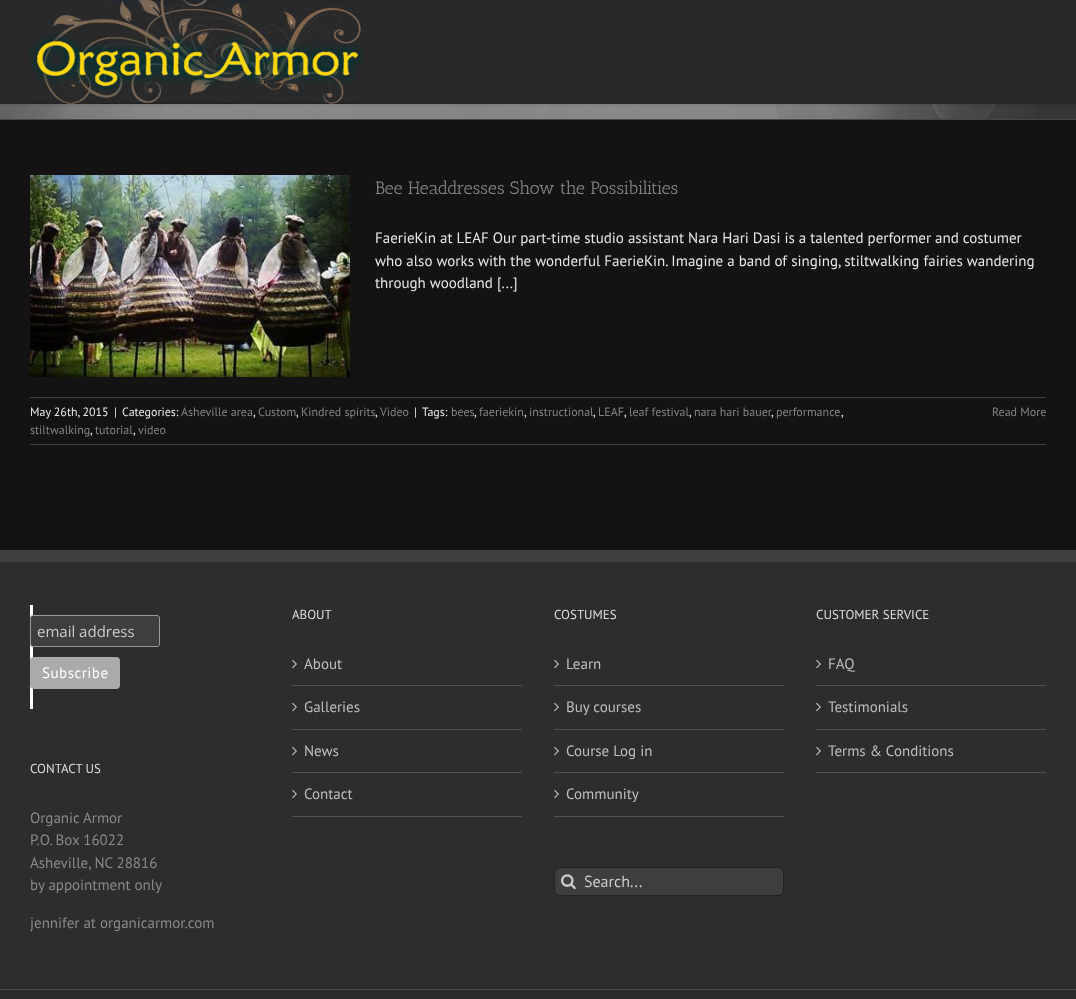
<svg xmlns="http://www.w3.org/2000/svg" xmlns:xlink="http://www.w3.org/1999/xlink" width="1076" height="999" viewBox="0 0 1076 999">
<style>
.cls-1{font:18px Antic Slab;fill:#858383}
.cls-2{font:15px PT Sans;fill:#e8e8e8}
.cls-3{font:12px PT Sans;fill:#e8e8e8}
.cls-4{font:12px PT Sans;fill:#858383}
.cls-5{font:15px Open Sans;fill:#cccccc}
.cls-6{font:15px PT Sans;letter-spacing:0.5px;fill:#ffffff}
.cls-7{font:13px PT Sans;fill:#dddddd}
.cls-8{font:15px PT Sans;fill:#8c8989}
.cls-9{font:15px PT Sans;fill:#bfbfbf}
.cls-10{font:16px PT Sans;fill:#cccccc}
</style>
<rect width="100%" height="100%" fill="#141212"/>
<rect fill="#353535" x="0" y="104" width="1076" height="15"/>
<image xlink:href="image1.png" x="0" y="104" width="1035" height="15"/>
<rect fill="#000000" fill-opacity="0.12" filter="blur(1.5px)" x="0" y="1" width="1076" height="104"/>
<rect fill="#29292a" x="0" y="0" width="1076" height="104"/>
<image xlink:href="image0.png" x="30" y="0" width="334" height="104"/>
<rect fill="#464646" x="0" y="119" width="1076" height="1"/>
<image xlink:href="image2.png" x="30" y="175" width="320" height="202"/>
<rect fill="#3e3e3e" x="30" y="397" width="1016" height="1"/>
<rect fill="#3e3e3e" x="30" y="444" width="1016" height="1"/>
<rect fill="#2d2d2d" x="0" y="562" width="1076" height="427"/>
<rect fill="#403f3f" x="0" y="550" width="1076" height="12"/>
<rect fill="#ffffff" x="30" y="605" width="3" height="104"/>
<rect fill="#3e3e3e" stroke="#999999" x="30.5" y="615.5" width="129" height="31" rx="2.5"/>
<rect fill="#aaaaaa" x="30" y="657" width="90" height="32" rx="4"/>
<rect fill="#505152" x="292" y="685" width="230" height="1"/>
<image xlink:href="image3.png" x="292" y="659" width="5" height="10"/>
<rect fill="#505152" x="292" y="729" width="230" height="1"/>
<image xlink:href="image3.png" x="292" y="702" width="5" height="10"/>
<rect fill="#505152" x="292" y="772" width="230" height="1"/>
<image xlink:href="image3.png" x="292" y="746" width="5" height="10"/>
<rect fill="#505152" x="292" y="816" width="230" height="1"/>
<image xlink:href="image3.png" x="292" y="789" width="5" height="10"/>
<rect fill="#505152" x="554" y="685" width="230" height="1"/>
<image xlink:href="image3.png" x="554" y="659" width="5" height="10"/>
<rect fill="#505152" x="554" y="729" width="230" height="1"/>
<image xlink:href="image3.png" x="554" y="702" width="5" height="10"/>
<rect fill="#505152" x="554" y="772" width="230" height="1"/>
<image xlink:href="image3.png" x="554" y="746" width="5" height="10"/>
<rect fill="#505152" x="554" y="816" width="230" height="1"/>
<image xlink:href="image3.png" x="554" y="789" width="5" height="10"/>
<rect fill="#3e3e3e" stroke="#212122" x="554.5" y="867.5" width="229" height="28" rx="5.5"/>
<image xlink:href="image4.png" x="561" y="874" width="15" height="16"/>
<rect fill="#505152" x="816" y="685" width="230" height="1"/>
<image xlink:href="image3.png" x="816" y="659" width="5" height="10"/>
<rect fill="#505152" x="816" y="729" width="230" height="1"/>
<image xlink:href="image3.png" x="816" y="702" width="5" height="10"/>
<rect fill="#505152" x="816" y="772" width="230" height="1"/>
<image xlink:href="image3.png" x="816" y="746" width="5" height="10"/>
<rect fill="#282a2b" x="0" y="990" width="1076" height="9"/>
<rect fill="#4b4c4d" x="0" y="989" width="1076" height="1"/>
<text class="cls-1" x="375" y="194">Bee Headdresses Show the Possibilities</text>
<text class="cls-2"><tspan x="375" y="243">FaerieKin at LEAF Our part-time studio assistant Nara Hari Dasi is a talented performer and costumer</tspan><tspan x="375" y="266">who also works with the wonderful FaerieKin. Imagine a band of singing, stiltwalking fairies wandering</tspan><tspan x="375" y="288">through woodland [...]</tspan></text>
<text class="cls-3" x="30" y="416">May 26th, 2015</text>
<text class="cls-3" x="114" y="416">|</text>
<text class="cls-3" x="122" y="416">Categories:</text>
<text class="cls-4" x="181" y="416">Asheville area</text>
<text class="cls-3" x="253" y="416">,</text>
<text class="cls-4" x="258" y="416">Custom</text>
<text class="cls-3" x="296" y="416">,</text>
<text class="cls-4" x="301" y="416">Kindred spirits</text>
<text class="cls-3" x="375" y="416">,</text>
<text class="cls-4" x="380" y="416">Video</text>
<text class="cls-3" x="414" y="416">|</text>
<text class="cls-3" x="422" y="416">Tags:</text>
<text class="cls-4" x="451" y="416">bees</text>
<text class="cls-3" x="474" y="416">,</text>
<text class="cls-4" x="479" y="416">faeriekin</text>
<text class="cls-3" x="524" y="416">,</text>
<text class="cls-4" x="529" y="416">instructional</text>
<text class="cls-3" x="593" y="416">,</text>
<text class="cls-4" x="598" y="416">LEAF</text>
<text class="cls-3" x="624" y="416">,</text>
<text class="cls-4" x="629" y="416">leaf festival</text>
<text class="cls-3" x="689" y="416">,</text>
<text class="cls-4" x="694" y="416">nara hari bauer</text>
<text class="cls-3" x="771" y="416">,</text>
<text class="cls-4" x="776" y="416">performance</text>
<text class="cls-3" x="841" y="416">,</text>
<text class="cls-4" x="30" y="434">stiltwalking</text>
<text class="cls-3" x="90" y="434">,</text>
<text class="cls-4" x="95" y="434">tutorial</text>
<text class="cls-3" x="133" y="434">,</text>
<text class="cls-4" x="138" y="434">video</text>
<text class="cls-4" x="992" y="416">Read More</text>
<text class="cls-5" x="37" y="637">email address</text>
<text class="cls-6" x="42" y="678">Subscribe</text>
<text class="cls-7" x="30" y="773">CONTACT US</text>
<text class="cls-8"><tspan x="30" y="823">Organic Armor</tspan><tspan x="30" y="845">P.O. Box 16022</tspan><tspan x="30" y="868">Asheville, NC 28816</tspan><tspan x="30" y="890">by appointment only</tspan></text>
<text class="cls-8" x="30" y="928">jennifer at organicarmor.com</text>
<text class="cls-7" x="292" y="619">ABOUT</text>
<text class="cls-9" x="304" y="669">About</text>
<text class="cls-9" x="304" y="712">Galleries</text>
<text class="cls-9" x="304" y="756">News</text>
<text class="cls-9" x="304" y="799">Contact</text>
<text class="cls-7" x="554" y="619">COSTUMES</text>
<text class="cls-9" x="566" y="669">Learn</text>
<text class="cls-9" x="566" y="712">Buy courses</text>
<text class="cls-9" x="566" y="756">Course Log in</text>
<text class="cls-9" x="566" y="799">Community</text>
<text class="cls-10" x="584" y="887">Search...</text>
<text class="cls-7" x="816" y="619">CUSTOMER SERVICE</text>
<text class="cls-9" x="828" y="669">FAQ</text>
<text class="cls-9" x="828" y="712">Testimonials</text>
<text class="cls-9" x="828" y="756">Terms &amp; Conditions</text>
</svg>
